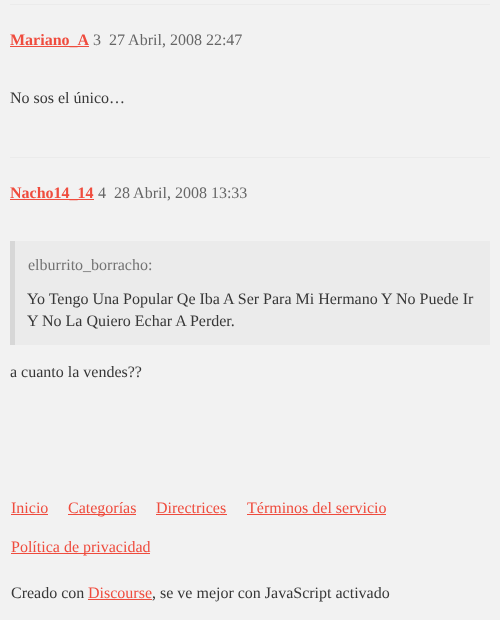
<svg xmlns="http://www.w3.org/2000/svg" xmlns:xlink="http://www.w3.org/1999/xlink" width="500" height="620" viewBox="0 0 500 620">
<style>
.cls-1{font:bold 16px Liberation Serif;fill:#ef4c3e}
.cls-2{font:16px Liberation Serif;fill:#666666}
.cls-3{font:16px Liberation Serif;fill:#373737}
.cls-4{font:16px Liberation Serif;fill:#737373}
.cls-5{font:16px Liberation Serif;fill:#ef4c3e}
</style>
<rect width="100%" height="100%" fill="#f2f2f2"/>
<rect fill="#ebebeb" x="10" y="4" width="480" height="1"/>
<rect fill="#ef4c3e" x="10" y="46" width="79" height="1"/>
<rect fill="#ebebeb" x="10" y="157" width="480" height="1"/>
<rect fill="#ef4c3e" x="10" y="199" width="84" height="1"/>
<rect fill="#ebebeb" x="15" y="241" width="475" height="104"/>
<rect fill="#d7d7d7" x="10" y="241" width="5" height="104"/>
<rect fill="#ef4c3e" x="11" y="514" width="37" height="1"/>
<rect fill="#ef4c3e" x="68" y="514" width="68" height="1"/>
<rect fill="#ef4c3e" x="156" y="514" width="71" height="1"/>
<rect fill="#ef4c3e" x="247" y="514" width="139" height="1"/>
<rect fill="#ef4c3e" x="11" y="553" width="139" height="1"/>
<rect fill="#ef4c3e" x="88" y="599" width="64" height="1"/>
<text class="cls-1" x="10" y="45">Mariano_A</text>
<text class="cls-2" x="93" y="45">3</text>
<text class="cls-2" x="109" y="45">27 Abril, 2008 22:47</text>
<text class="cls-3" x="10" y="103">No sos el único…</text>
<text class="cls-1" x="10" y="198">Nacho14_14</text>
<text class="cls-2" x="98" y="198">4</text>
<text class="cls-2" x="114" y="198">28 Abril, 2008 13:33</text>
<text class="cls-4" x="28" y="270">elburrito_borracho:</text>
<text class="cls-3"><tspan x="27" y="304">Yo Tengo Una Popular Qe Iba A Ser Para Mi Hermano Y No Puede Ir</tspan><tspan x="27" y="326">Y No La Quiero Echar A Perder.</tspan></text>
<text class="cls-3" x="10" y="377">a cuanto la vendes??</text>
<text class="cls-5" x="11" y="513">Inicio</text>
<text class="cls-5" x="68" y="513">Categorías</text>
<text class="cls-5" x="156" y="513">Directrices</text>
<text class="cls-5" x="247" y="513">Términos del servicio</text>
<text class="cls-5" x="11" y="552">Política de privacidad</text>
<text class="cls-3" x="11" y="598">Creado con</text>
<text class="cls-5" x="88" y="598">Discourse</text>
<text class="cls-3" x="152" y="598">, se ve mejor con JavaScript activado</text>
</svg>
